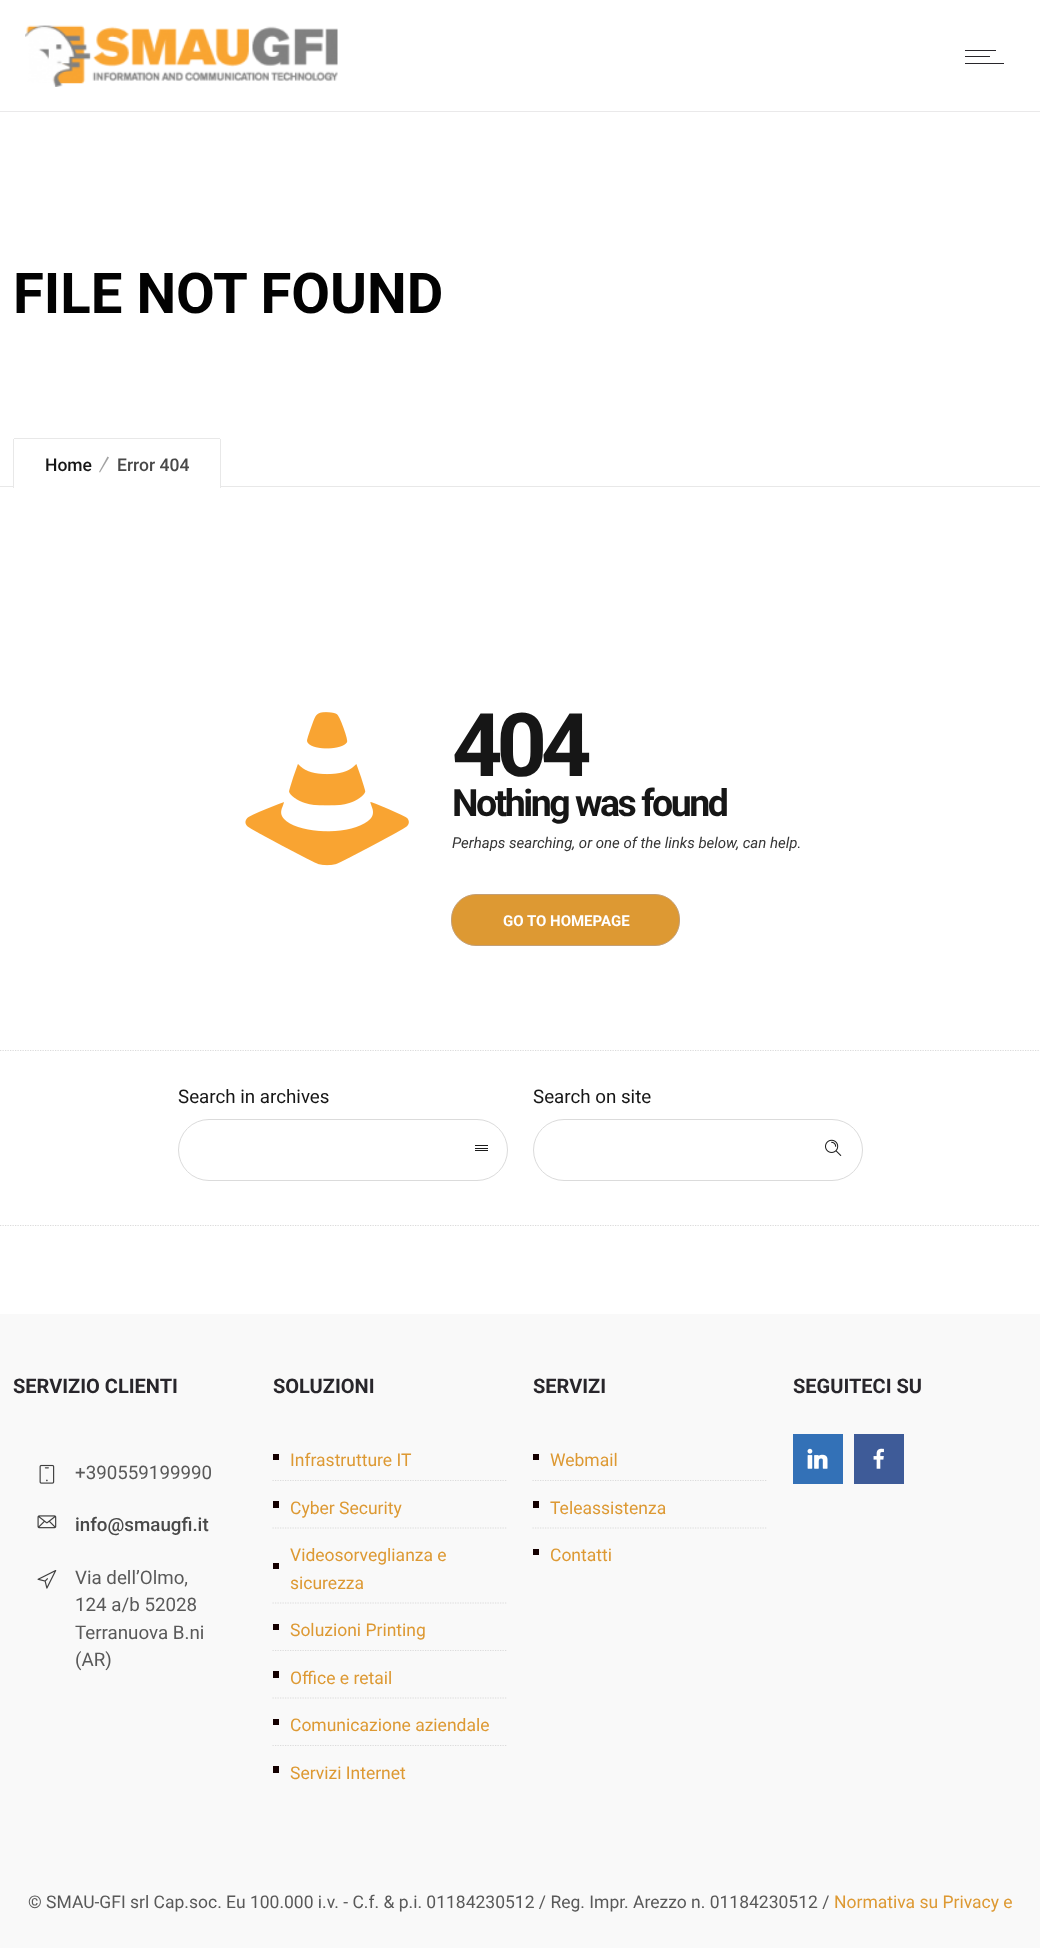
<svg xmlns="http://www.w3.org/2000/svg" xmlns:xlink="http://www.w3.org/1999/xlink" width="1040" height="1953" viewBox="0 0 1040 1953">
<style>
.cls-1{font:bold 56.25px Roboto;fill:#020202}
.cls-2{font:500 17.5px Roboto;fill:#161616}
.cls-3{font:500 17.5px Roboto;fill:#494949}
.cls-4{font:bold 88px Roboto;letter-spacing:-6px;fill:#161616}
.cls-5{font:bold 37.5px Roboto;letter-spacing:-2.5px;fill:#161616}
.cls-6{font:italic 15px Roboto;fill:#353535}
.cls-7{font:bold 15px Roboto;fill:#ffffff}
.cls-8{font:18.75px Roboto;fill:#161616}
.cls-9{font:bold 20px Roboto;fill:#28262b}
.cls-10{font:18.75px Roboto;fill:#595959}
.cls-11{font:500 18.75px Roboto;fill:#494949}
.cls-12{font:17.5px Roboto;fill:#dd9933}
.cls-13{font:17.5px Roboto;fill:#595959}
</style>
<rect width="100%" height="100%" fill="#ffffff"/>
<rect fill="#eae9ea" x="0" y="111" width="1040" height="1"/>
<image xlink:href="image0.png" x="25" y="25" width="313" height="62"/>
<rect fill="#28262b" x="965" y="50" width="31" height="1"/>
<rect fill="#28262b" x="965" y="56" width="25" height="1"/>
<rect fill="#28262b" x="965" y="63" width="39" height="1"/>
<rect fill="#e8e8e8" x="0" y="486" width="1040" height="1"/>
<path fill="#ffffff" d="M15.5 438H218.5C220 438 221 439 221 440.5V488H13V440.5C13 439 14 438 15.5 438Z"/>
<rect fill="#e8e8e8" x="14" y="438" width="206" height="1"/>
<rect fill="#e8e8e8" x="220" y="439" width="1" height="49"/>
<rect fill="#e8e8e8" x="13" y="439" width="1" height="49"/>
<path fill="#a2a2a2" d="M107.5 456.5L109 457.5L100 472.5L99 472Z"/>
<image xlink:href="image1.png" x="245" y="712" width="164" height="154"/>
<rect fill="#dd9933" stroke="#c39f76" x="451.5" y="894.5" width="228" height="51" rx="24.5"/>
<path fill="none" stroke="#dbdbdb" stroke-width="1.2" stroke-dasharray="1.25 1.25" d="M0 1050.5H1040"/>
<path fill="none" stroke="#dbdbdb" stroke-width="1.2" stroke-dasharray="1.25 1.25" d="M0 1225.5H1040"/>
<rect fill="none" stroke="#dbdbdb" x="178.5" y="1119.5" width="329" height="61" rx="30.5"/>
<rect fill="#1b1b1b" x="475" y="1150" width="13" height="1"/>
<rect fill="#1b1b1b" x="475" y="1145" width="13" height="1"/>
<rect fill="#1b1b1b" x="475" y="1148" width="13" height="1"/>
<image xlink:href="image2.png" x="825" y="1139" width="17" height="17"/>
<rect fill="none" stroke="#dbdbdb" x="533.5" y="1119.5" width="329" height="61" rx="30.5"/>
<rect fill="#f9f9f9" x="0" y="1314" width="1040" height="634"/>
<image xlink:href="image3.png" x="39" y="1464" width="16" height="20"/>
<image xlink:href="image4.png" x="37" y="1515" width="20" height="14"/>
<image xlink:href="image5.png" x="37" y="1570" width="20" height="19"/>
<path fill="none" stroke="#dbdbdb" stroke-width="1.2" stroke-dasharray="1.25 1.25" d="M272.5 1480.5H507.5"/>
<rect fill="#140000" x="273" y="1454" width="6" height="6"/>
<path fill="none" stroke="#dbdbdb" stroke-width="1.2" stroke-dasharray="1.25 1.25" d="M272.5 1528H507.5"/>
<rect fill="#140000" x="273" y="1501" width="6" height="7"/>
<path fill="none" stroke="#dbdbdb" stroke-width="1.2" stroke-dasharray="1.25 1.25" d="M272.5 1603H507.5"/>
<rect fill="#140000" x="273" y="1563" width="6" height="6"/>
<path fill="none" stroke="#dbdbdb" stroke-width="1.2" stroke-dasharray="1.25 1.25" d="M272.5 1650.5H507.5"/>
<rect fill="#140000" x="273" y="1624" width="6" height="6"/>
<path fill="none" stroke="#dbdbdb" stroke-width="1.2" stroke-dasharray="1.25 1.25" d="M272.5 1698H507.5"/>
<rect fill="#140000" x="273" y="1671" width="6" height="7"/>
<path fill="none" stroke="#dbdbdb" stroke-width="1.2" stroke-dasharray="1.25 1.25" d="M272.5 1745.5H507.5"/>
<rect fill="#140000" x="273" y="1719" width="6" height="6"/>
<rect fill="#140000" x="273" y="1766" width="6" height="7"/>
<path fill="none" stroke="#dbdbdb" stroke-width="1.2" stroke-dasharray="1.25 1.25" d="M532.5 1480.5H767.5"/>
<rect fill="#140000" x="533" y="1454" width="6" height="6"/>
<path fill="none" stroke="#dbdbdb" stroke-width="1.2" stroke-dasharray="1.25 1.25" d="M532.5 1528H767.5"/>
<rect fill="#140000" x="533" y="1501" width="6" height="7"/>
<rect fill="#140000" x="533" y="1549" width="6" height="6"/>
<rect fill="#3371b7" x="793" y="1434" width="50" height="50"/>
<image xlink:href="image6.png" x="807" y="1448" width="21" height="21"/>
<rect fill="#3e5b98" x="854" y="1434" width="50" height="50"/>
<image xlink:href="image7.png" x="873" y="1448" width="11" height="21"/>
<text class="cls-1" x="13" y="313">FILE NOT FOUND</text>
<text class="cls-2" x="45" y="471">Home</text>
<text class="cls-3" x="117" y="471">Error 404</text>
<text class="cls-4" x="452" y="776">404</text>
<text class="cls-5" x="452" y="816">Nothing was found</text>
<text class="cls-6" x="452" y="848">Perhaps searching, or one of the links below, can help.</text>
<text class="cls-7" x="503" y="926">GO TO HOMEPAGE</text>
<text class="cls-8" x="178" y="1103">Search in archives</text>
<text class="cls-8" x="533" y="1103">Search on site</text>
<text class="cls-9" x="13" y="1393">SERVIZIO CLIENTI</text>
<text class="cls-10" x="75" y="1479">+390559199990</text>
<text class="cls-11" x="75" y="1531">info@smaugfi.it</text>
<text class="cls-10"><tspan x="75" y="1584">Via dell’Olmo,</tspan><tspan x="75" y="1611">124 a/b 52028</tspan><tspan x="75" y="1639">Terranuova B.ni</tspan><tspan x="75" y="1666">(AR)</tspan></text>
<text class="cls-9" x="273" y="1393">SOLUZIONI</text>
<text class="cls-12" x="290" y="1466">Infrastrutture IT</text>
<text class="cls-12" x="290" y="1514">Cyber Security</text>
<text class="cls-12"><tspan x="290" y="1561">Videosorveglianza e</tspan><tspan x="290" y="1589">sicurezza</tspan></text>
<text class="cls-12" x="290" y="1636">Soluzioni Printing</text>
<text class="cls-12" x="290" y="1684">Office e retail</text>
<text class="cls-12" x="290" y="1731">Comunicazione aziendale</text>
<text class="cls-12" x="290" y="1779">Servizi Internet</text>
<text class="cls-9" x="533" y="1393">SERVIZI</text>
<text class="cls-12" x="550" y="1466">Webmail</text>
<text class="cls-12" x="550" y="1514">Teleassistenza</text>
<text class="cls-12" x="550" y="1561">Contatti</text>
<text class="cls-9" x="793" y="1393">SEGUITECI SU</text>
<text class="cls-13" x="28" y="1908">© SMAU-GFI srl Cap.soc. Eu 100.000 i.v. - C.f. &amp; p.i. 01184230512 / Reg. Impr. Arezzo n. 01184230512 /</text>
<text class="cls-12" x="834" y="1908">Normativa su Privacy e</text>
</svg>
